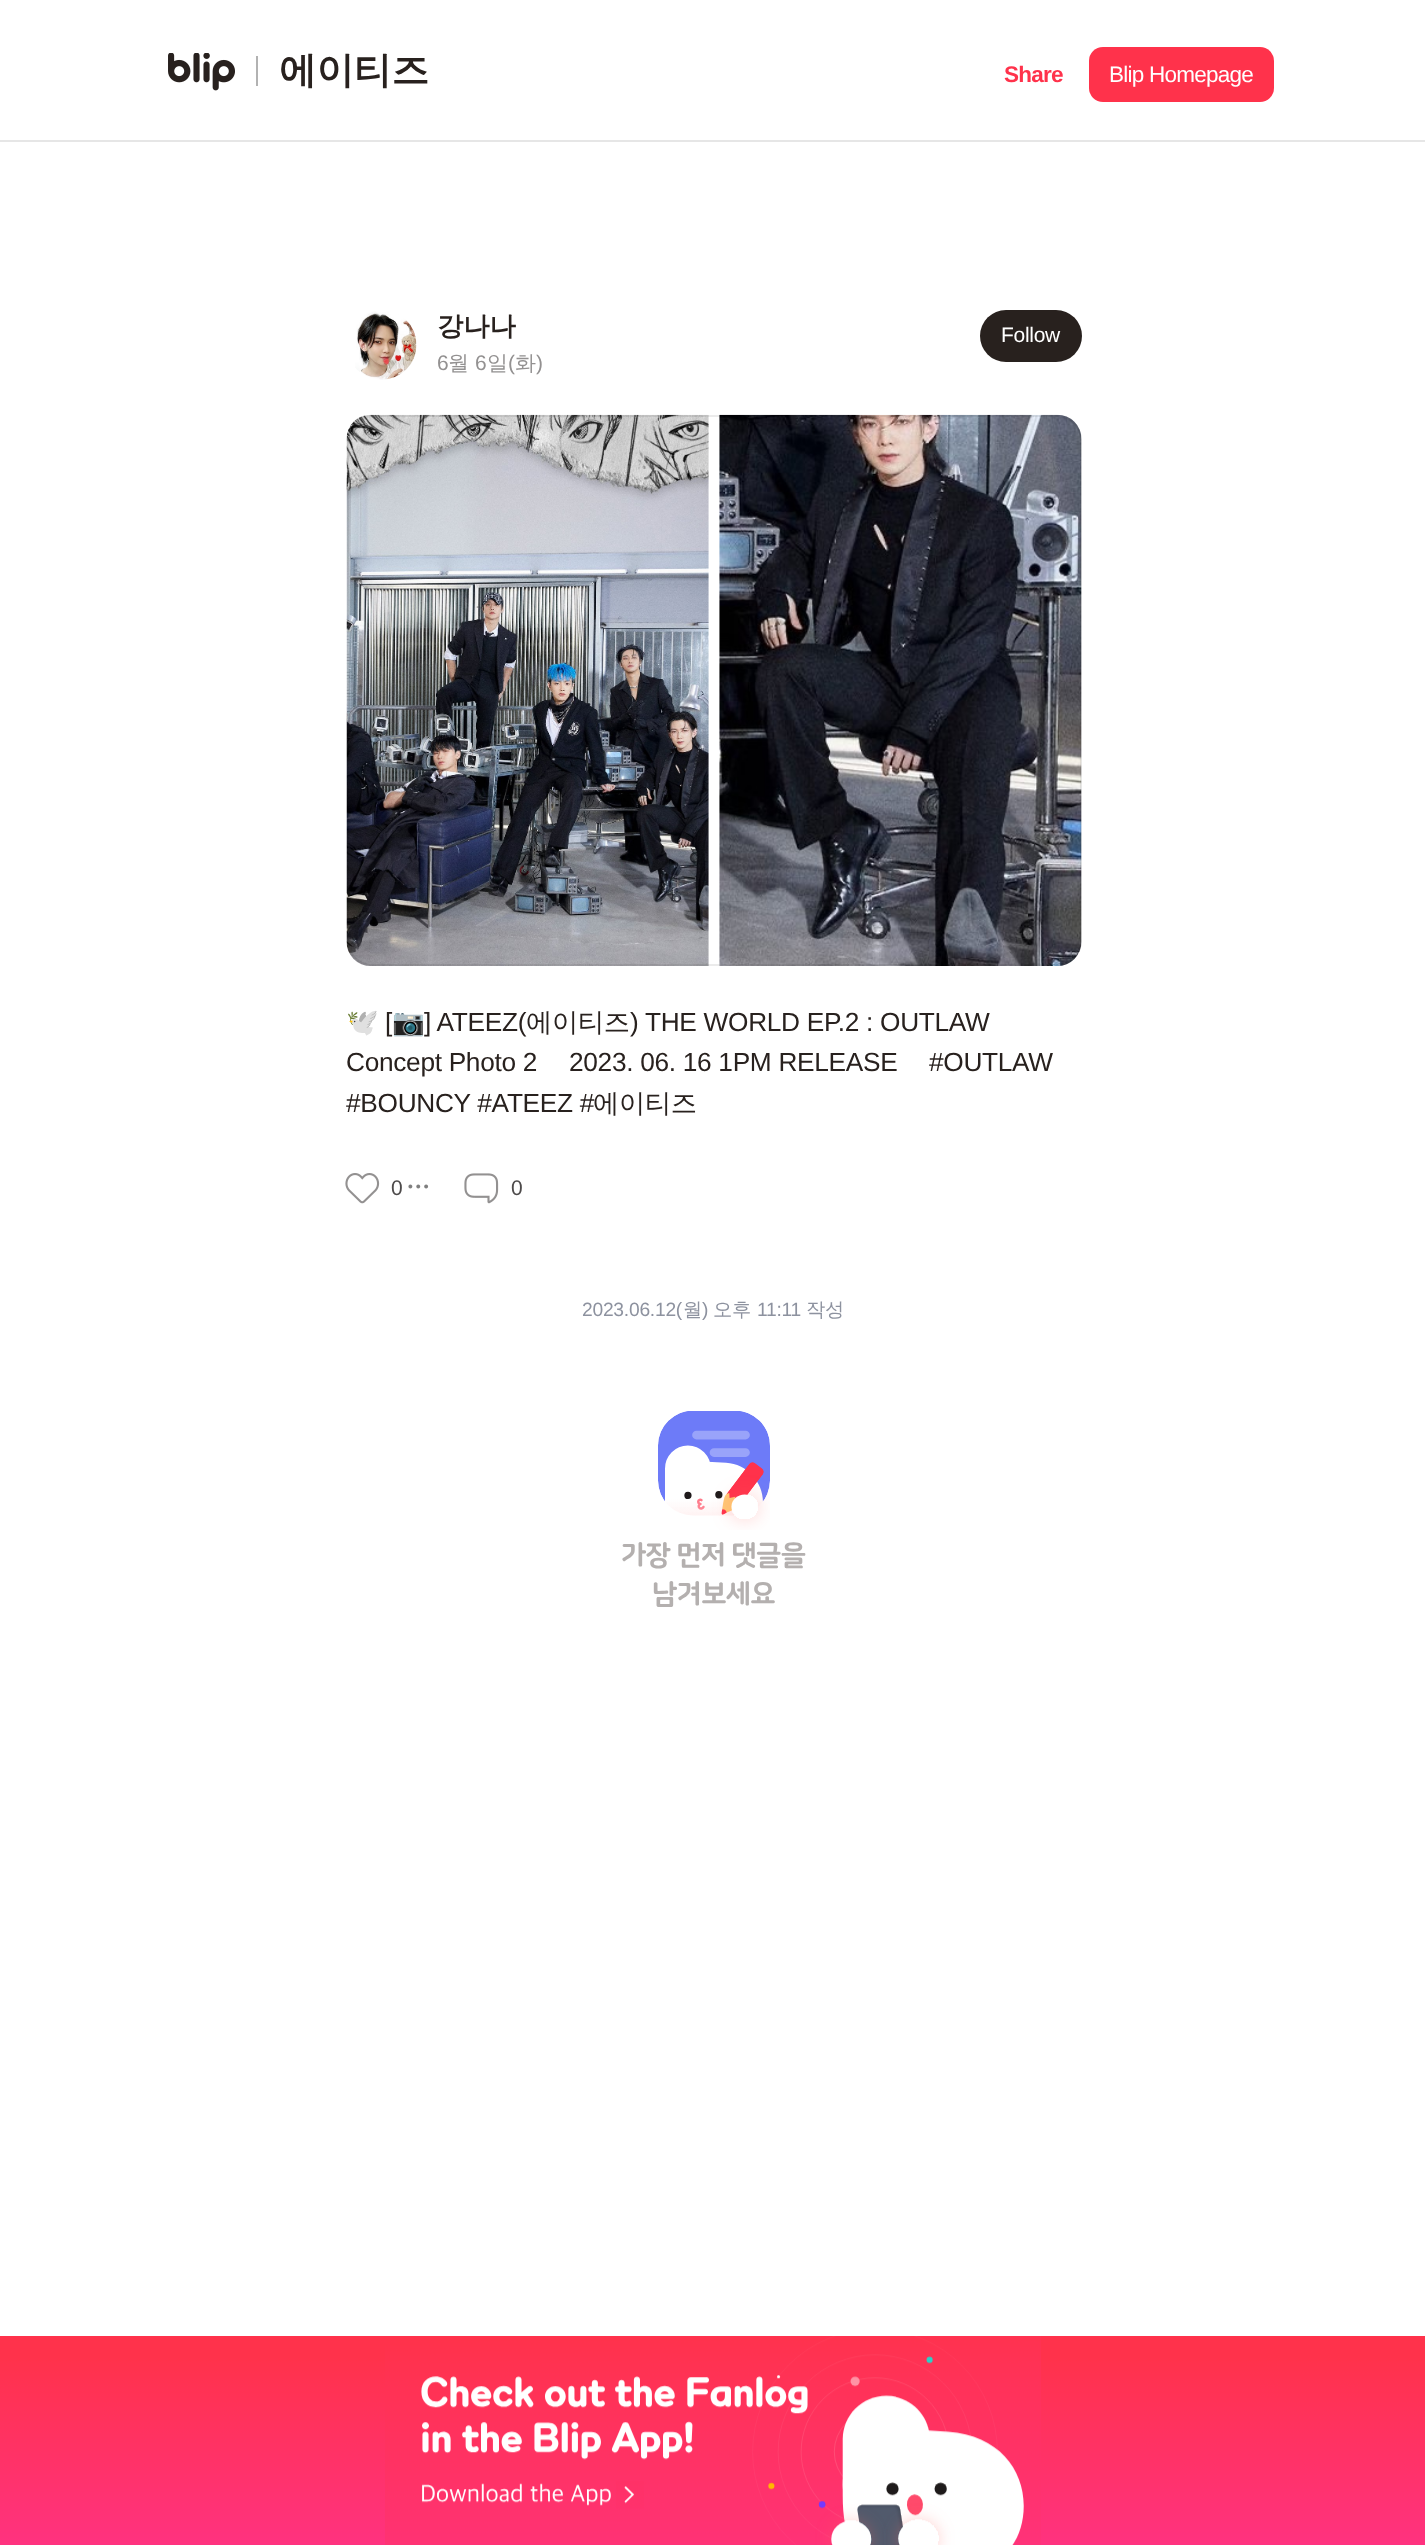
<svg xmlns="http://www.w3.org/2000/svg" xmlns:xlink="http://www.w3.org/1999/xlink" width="1425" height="2545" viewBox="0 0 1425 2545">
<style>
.cls-1{font:bold 37.5px WenQuanYi Zen Hei;fill:#28211e}
.cls-2{font:bold 22.5px Liberation Sans;letter-spacing:-0.75px;fill:#ff324b}
.cls-3{font:22.5px Liberation Sans;letter-spacing:-0.75px;fill:#ffffff}
.cls-4{font:bold 26.25px WenQuanYi Zen Hei;fill:#28211e}
.cls-5{font:21px Liberation Sans;fill:#939191}
.cls-6{font:500 21px WenQuanYi Zen Hei;fill:#939191}
.cls-7{font:21px Liberation Sans;letter-spacing:-0.3px;fill:#ffffff}
.cls-8{font:26.25px Noto Color Emoji;letter-spacing:-0.3px;fill:#28211e}
.cls-9{font:26.25px Liberation Sans;letter-spacing:-0.3px;fill:#28211e}
.cls-10{font:500 26.25px WenQuanYi Zen Hei;letter-spacing:-0.3px;fill:#28211e}
.cls-11{font:21px Liberation Sans;fill:#4e4b4b}
.cls-12{font:19.25px Liberation Sans;letter-spacing:-0.25px;fill:#8d929f}
.cls-13{font:500 19.25px WenQuanYi Zen Hei;letter-spacing:-0.25px;fill:#8d929f}
.cls-14{font:800 28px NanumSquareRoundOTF;letter-spacing:-0.9px;fill:#b4b0af}
</style>
<defs>
<linearGradient id="g1" gradientUnits="userSpaceOnUse" x1="713" y1="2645" x2="713" y2="2336"><stop offset="0" stop-color="#ff329b"/><stop offset="0.93" stop-color="#ff324b"/></linearGradient>
</defs>
<rect width="100%" height="100%" fill="#ffffff"/>
<rect fill="#e6e6e6" x="0" y="140" width="1425" height="2"/>
<image xlink:href="image0.png" x="168" y="53" width="67" height="38"/>
<rect fill="#b2b2b2" x="256" y="56" width="2" height="30"/>
<rect fill="#ff324b" x="1089" y="47" width="185" height="55" rx="14"/>
<image xlink:href="image1.png" x="355" y="311" width="62" height="69"/>
<rect fill="#28211e" x="980" y="310" width="102" height="52" rx="26"/>
<image xlink:href="image2.png" x="346" y="414" width="363" height="552"/>
<image xlink:href="image3.png" x="719" y="414" width="363" height="552"/>
<rect fill="none" stroke="#000000" stroke-opacity="0.08" stroke-width="2" x="348" y="416" width="733" height="549" rx="24"/>
<image xlink:href="image4.png" x="345" y="1173" width="35" height="31"/>
<image xlink:href="image5.png" x="408" y="1184" width="21" height="5"/>
<image xlink:href="image6.png" x="464" y="1173" width="35" height="31"/>
<image xlink:href="image7.png" x="658" y="1411" width="112" height="119"/>
<rect fill="url(#g1)" x="0" y="2336" width="1425" height="209"/>
<image xlink:href="image8.png" x="385" y="2336" width="656" height="209"/>
<text class="cls-1" x="279" y="83">에이티즈</text>
<text class="cls-2" x="1004" y="82">Share</text>
<text class="cls-3" x="1109" y="82">Blip Homepage</text>
<text class="cls-4" x="437" y="335">강나나</text>
<text class="cls-5" x="437" y="370">6</text>
<text class="cls-6" x="448" y="370">월</text>
<text class="cls-5" x="475" y="370">6</text>
<text class="cls-6" x="487" y="370">일</text>
<text class="cls-5" x="508" y="370">(</text>
<text class="cls-6" x="515" y="370">화</text>
<text class="cls-5" x="536" y="370">)</text>
<text class="cls-7" x="1001" y="342">Follow</text>
<text class="cls-8" x="346" y="1031">🕊️</text>
<text class="cls-9" x="385" y="1031">[</text>
<text class="cls-8" x="392" y="1031">📷</text>
<text class="cls-9" x="424" y="1031">] ATEEZ(</text>
<text class="cls-10" x="526" y="1031">에이티즈</text>
<text class="cls-9" x="630" y="1031">) THE WORLD EP.2 : OUTLAW</text>
<text class="cls-9" x="346" y="1071">Concept Photo 2</text>
<text class="cls-9" x="569" y="1071">2023. 06. 16 1PM RELEASE</text>
<text class="cls-9" x="929" y="1071">#OUTLAW</text>
<text class="cls-9" x="346" y="1112">#BOUNCY #ATEEZ #</text>
<text class="cls-10" x="593" y="1112">에이티즈</text>
<text class="cls-11" x="391" y="1195">0</text>
<text class="cls-11" x="511" y="1195">0</text>
<text class="cls-12" x="582" y="1316">2023.06.12(</text>
<text class="cls-13" x="683" y="1316">월</text>
<text class="cls-12" x="702" y="1316">)</text>
<text class="cls-13" x="713" y="1316">오후</text>
<text class="cls-12" x="757" y="1316">11:11</text>
<text class="cls-13" x="806" y="1316">작성</text>
<text class="cls-14" x="621" y="1564">가장 먼저 댓글을</text>
<text class="cls-14" x="652" y="1603">남겨보세요</text>
</svg>
